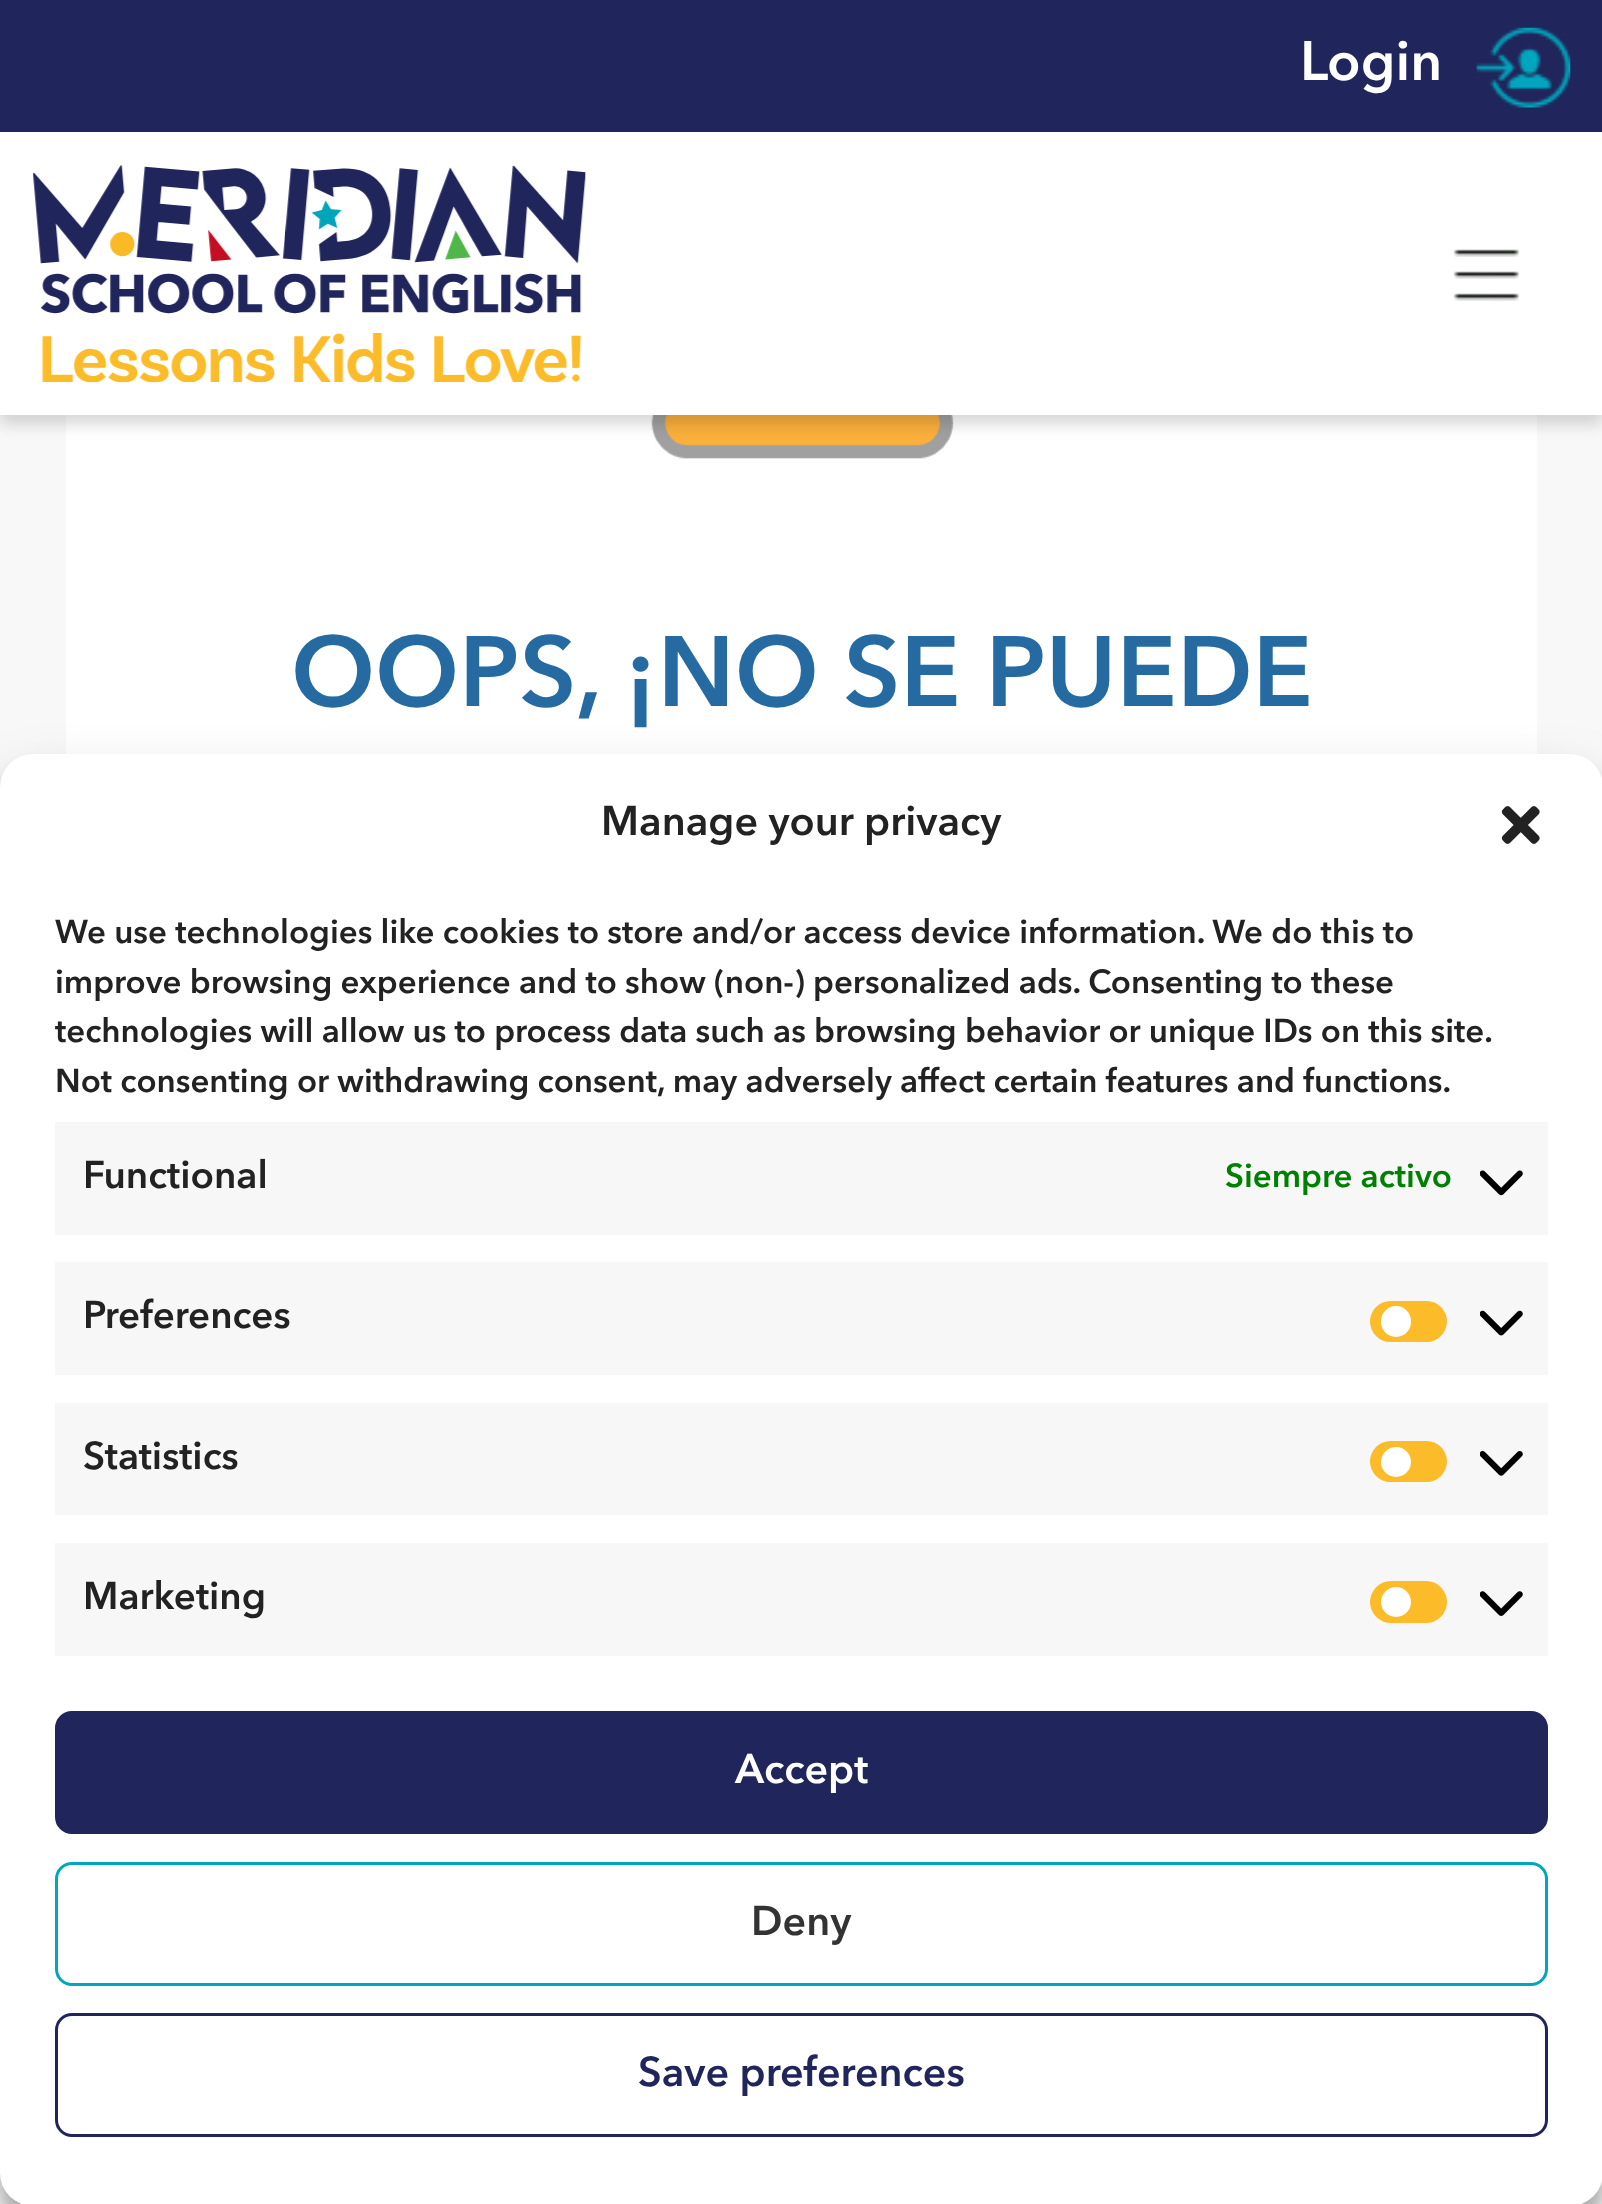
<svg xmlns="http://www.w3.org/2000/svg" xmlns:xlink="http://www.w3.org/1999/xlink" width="1602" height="2204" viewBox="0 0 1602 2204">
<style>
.cls-1{font:600 55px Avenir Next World;fill:#ffffff}
.cls-2{font:600 99px Avenir Next World;fill:#256ba2}
.cls-3{font:600 41.25px Avenir Next World;fill:#222222}
.cls-4{font:600 33px Avenir Next World;fill:#222222}
.cls-5{font:600 38.5px Avenir Next World;fill:#222222}
.cls-6{font:600 33px Avenir Next World;fill:#008000}
.cls-7{font:600 41.25px Avenir Next World;fill:#ffffff}
.cls-8{font:600 41.25px Avenir Next World;fill:#333333}
.cls-9{font:600 41.25px Avenir Next World;fill:#20265b}
</style>
<rect width="100%" height="100%" fill="#f8f8f8"/>
<rect fill="#ffffff" x="66" y="415" width="1471" height="339"/>
<image xlink:href="image3.png" x="651" y="415" width="303" height="44"/>
<rect fill="#000000" fill-opacity="0.16" filter="blur(8px)" x="0" y="8" width="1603" height="416"/>
<rect fill="#20265b" x="0" y="0" width="1602" height="132"/>
<image xlink:href="image0.png" x="1476" y="27" width="95" height="81"/>
<rect fill="#ffffff" x="0" y="132" width="1602" height="283"/>
<image xlink:href="image1.png" x="33" y="165" width="553" height="218"/>
<image xlink:href="image2.png" x="1453" y="249" width="67" height="52"/>
<rect fill="#ffffff" x="0" y="2173" width="1602" height="31"/>
<rect fill="#000000" fill-opacity="0.23" filter="blur(8px)" x="0" y="770" width="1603" height="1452" rx="33"/>
<rect fill="#000000" fill-opacity="0.19" filter="blur(27.5px)" x="0" y="781" width="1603" height="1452" rx="33"/>
<rect fill="#ffffff" x="0" y="754" width="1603" height="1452" rx="33"/>
<image xlink:href="image4.png" x="1501" y="806" width="39" height="38"/>
<rect fill="#f7f7f7" x="55" y="1122" width="1493" height="113"/>
<image xlink:href="image5.png" x="1480" y="1170" width="43" height="26"/>
<rect fill="#f7f7f7" x="55" y="1262" width="1493" height="113"/>
<rect fill="#fcbb29" x="1370" y="1301" width="77" height="41" rx="20.5"/>
<rect fill="#ffffff" x="1381" y="1306" width="30" height="31" rx="15"/>
<image xlink:href="image6.png" x="1480" y="1310" width="43" height="26"/>
<rect fill="#f7f7f7" x="55" y="1403" width="1493" height="112"/>
<rect fill="#fcbb29" x="1370" y="1441" width="77" height="41" rx="20.5"/>
<circle fill="#ffffff" cx="1396" cy="1462" r="15"/>
<image xlink:href="image7.png" x="1480" y="1451" width="43" height="25"/>
<rect fill="#f7f7f7" x="55" y="1543" width="1493" height="113"/>
<rect fill="#fcbb29" x="1370" y="1581" width="77" height="42" rx="21"/>
<circle fill="#ffffff" cx="1396" cy="1602" r="15"/>
<image xlink:href="image8.png" x="1480" y="1591" width="43" height="25"/>
<rect fill="#20265b" stroke="#20265b" stroke-width="3" x="56.5" y="1712.5" width="1490" height="120" rx="15.5"/>
<rect fill="none" stroke="#00a6bd" stroke-width="3" x="56.5" y="1863.5" width="1490" height="121" rx="15.5"/>
<rect fill="none" stroke="#20265b" stroke-width="3" x="56.5" y="2014.5" width="1490" height="121" rx="15.5"/>
<text class="cls-1" x="1300" y="80">Login</text>
<text class="cls-2" x="291" y="706">OOPS, ¡NO SE PUEDE</text>
<text class="cls-3" x="601" y="835">Manage your privacy</text>
<text class="cls-4"><tspan x="55" y="943">We use technologies like cookies to store and/or access device information. We do this to</tspan><tspan x="55" y="993">improve browsing experience and to show (non-) personalized ads. Consenting to these</tspan><tspan x="55" y="1042">technologies will allow us to process data such as browsing behavior or unique IDs on this site.</tspan><tspan x="55" y="1092">Not consenting or withdrawing consent, may adversely affect certain features and functions.</tspan></text>
<text class="cls-5" x="83" y="1188">Functional</text>
<text class="cls-6" x="1225" y="1187">Siempre activo</text>
<text class="cls-5" x="83" y="1328">Preferences</text>
<text class="cls-5" x="83" y="1469">Statistics</text>
<text class="cls-5" x="83" y="1609">Marketing</text>
<text class="cls-7" x="735" y="1783">Accept</text>
<text class="cls-8" x="751" y="1935">Deny</text>
<text class="cls-9" x="638" y="2086">Save preferences</text>
</svg>
